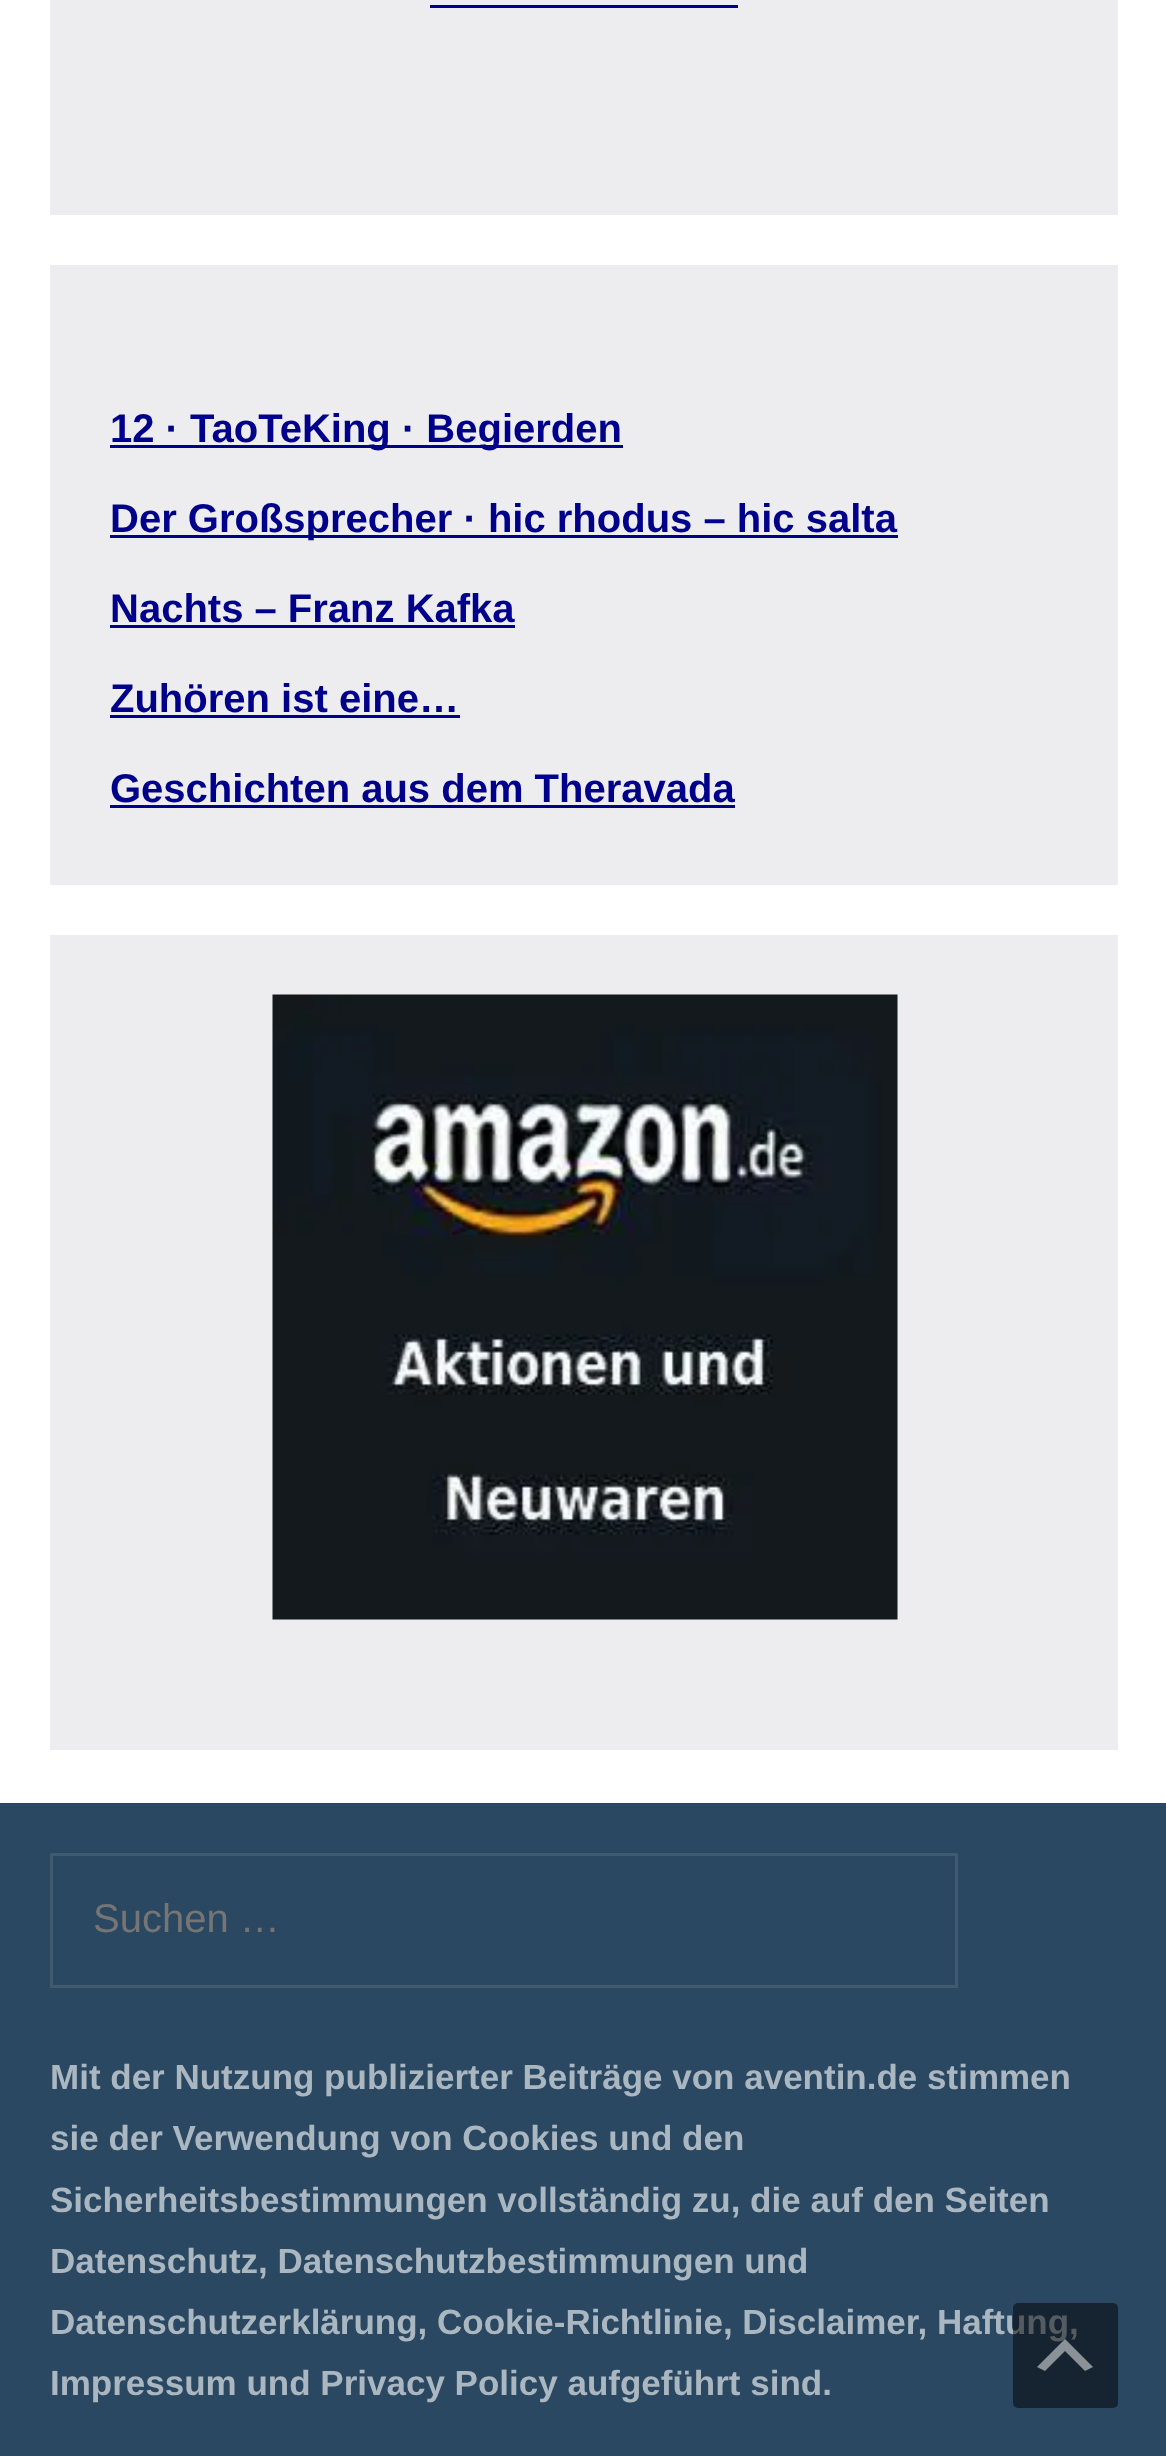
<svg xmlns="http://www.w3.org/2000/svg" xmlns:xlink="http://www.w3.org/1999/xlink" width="1166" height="2456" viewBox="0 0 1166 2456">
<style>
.cls-1{font:bold 40px Liberation Sans;fill:#00008b}
.cls-2{font:40px Liberation Sans;fill:#757575}
.cls-3{font:bold 35px Liberation Sans;fill:#aab6c0}
</style>
<rect width="100%" height="100%" fill="#ffffff"/>
<rect fill="#ededef" x="50" y="0" width="1068" height="215"/>
<rect fill="#00008b" x="430" y="5" width="308" height="3"/>
<rect fill="#ededef" x="50" y="265" width="1068" height="620"/>
<rect fill="#00008b" x="110" y="445" width="513" height="3"/>
<rect fill="#00008b" x="110" y="535" width="788" height="3"/>
<rect fill="#00008b" x="110" y="625" width="405" height="3"/>
<rect fill="#00008b" x="110" y="715" width="350" height="3"/>
<rect fill="#00008b" x="110" y="805" width="625" height="3"/>
<rect fill="#ededef" x="50" y="935" width="1068" height="815"/>
<image xlink:href="image0.png" x="272" y="994" width="626" height="626"/>
<rect fill="#2a4861" x="0" y="1803" width="1166" height="653"/>
<rect fill="none" stroke="#3f5a71" stroke-width="3" x="51.5" y="1854.5" width="905" height="132"/>
<text class="cls-1" x="110" y="442">12 · TaoTeKing · Begierden</text>
<text class="cls-1" x="110" y="532">Der Großsprecher · hic rhodus – hic salta</text>
<text class="cls-1" x="110" y="622">Nachts – Franz Kafka</text>
<text class="cls-1" x="110" y="712">Zuhören ist eine…</text>
<text class="cls-1" x="110" y="802">Geschichten aus dem Theravada</text>
<text class="cls-2" x="93" y="1932">Suchen …</text>
<text class="cls-3"><tspan x="50" y="2089">Mit der Nutzung publizierter Beiträge von aventin.de stimmen</tspan><tspan x="50" y="2150">sie der Verwendung von Cookies und den</tspan><tspan x="50" y="2212">Sicherheitsbestimmungen vollständig zu, die auf den Seiten</tspan><tspan x="50" y="2273">Datenschutz, Datenschutzbestimmungen und</tspan><tspan x="50" y="2334">Datenschutzerklärung, Cookie-Richtlinie, Disclaimer, Haftung,</tspan><tspan x="50" y="2395">Impressum und Privacy Policy aufgeführt sind.</tspan></text>
<rect fill="#000000" fill-opacity="0.5" x="1013" y="2303" width="105" height="105" rx="5"/>
<path fill="#ffffff" fill-opacity="0.5" d="M1085 2371L1065 2351L1045 2371L1037 2367L1065 2339L1093 2367Z"/>
</svg>
